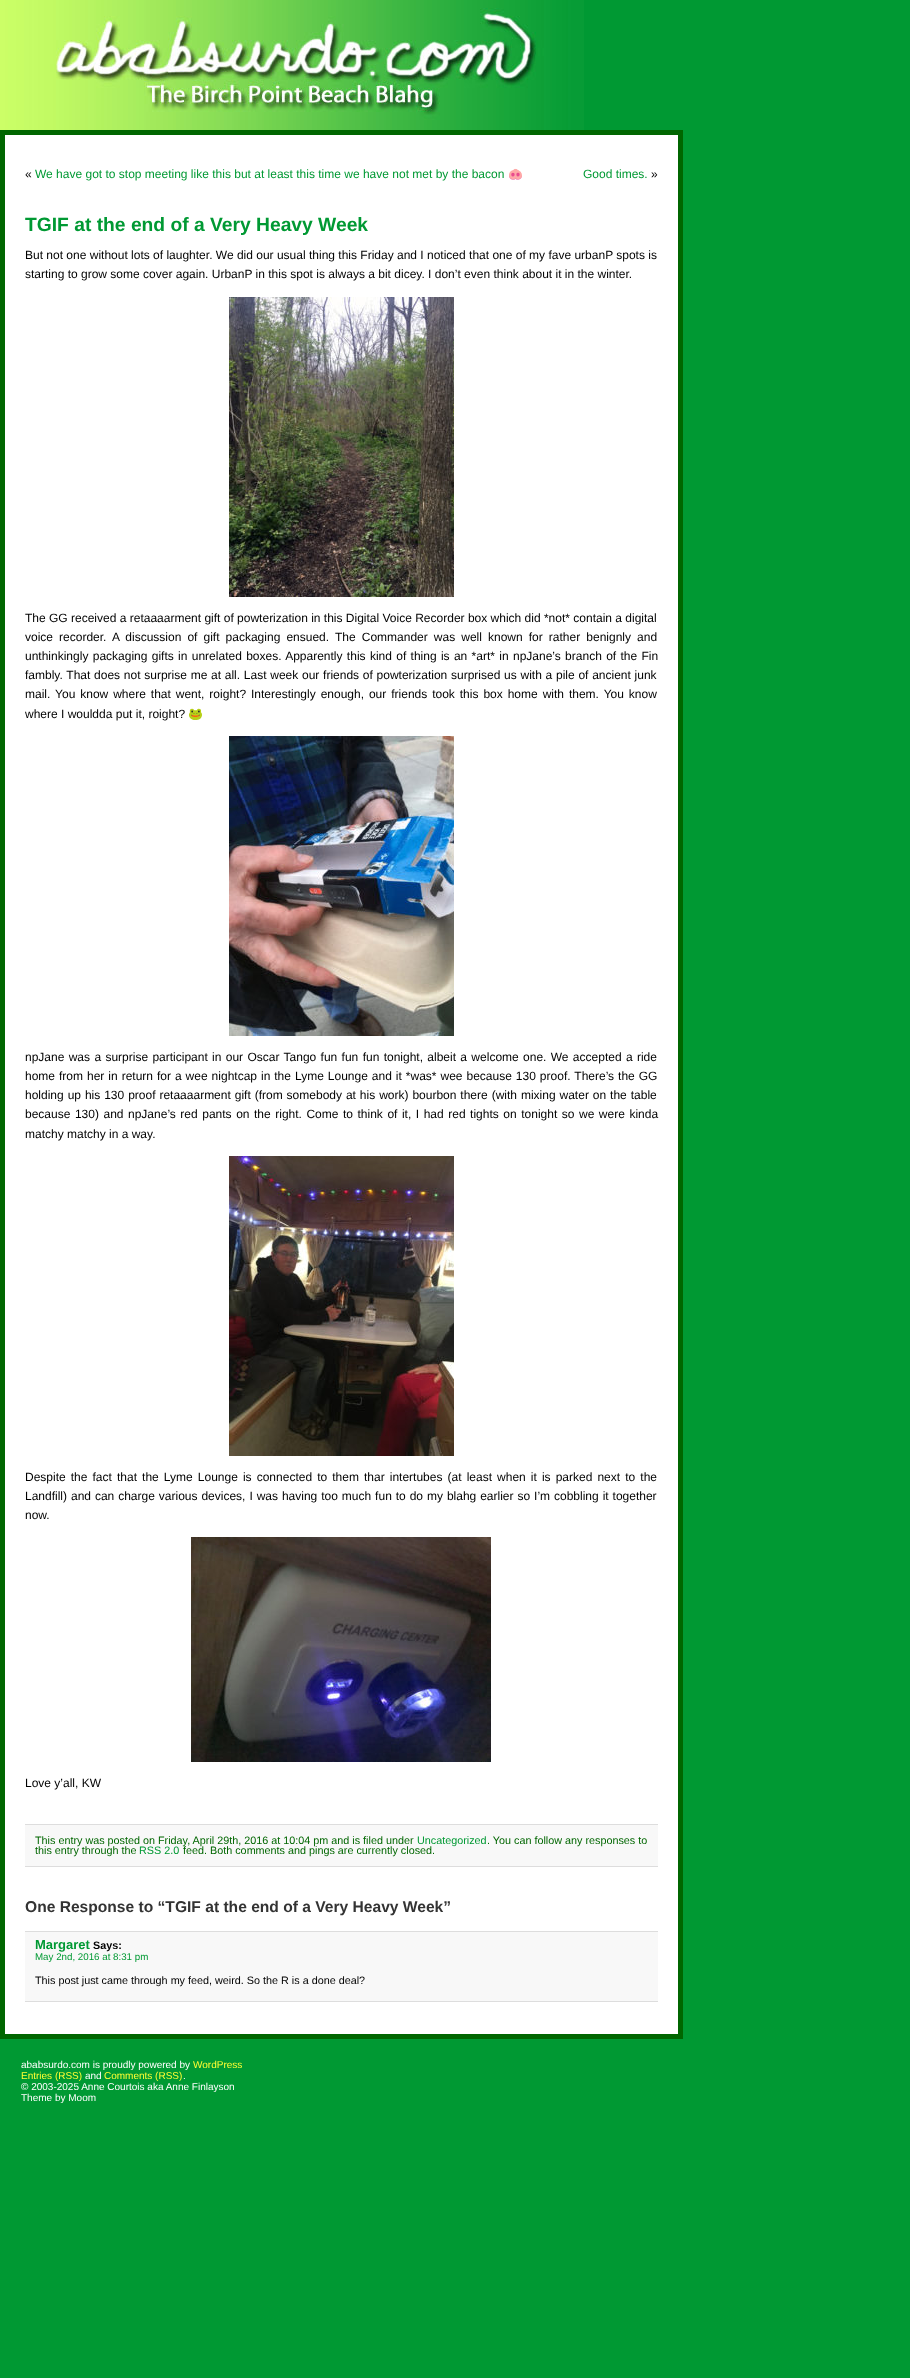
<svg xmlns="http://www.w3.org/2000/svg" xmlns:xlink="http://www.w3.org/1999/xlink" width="910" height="2378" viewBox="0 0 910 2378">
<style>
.cls-1{font:12px Liberation Sans;fill:#000000}
.cls-2{font:12px Liberation Sans;fill:#009933}
.cls-3{font:12px Noto Color Emoji;fill:#009933}
.cls-4{font:bold 19.25px Liberation Sans;fill:#009933}
.cls-5{font:12px Noto Color Emoji;fill:#000000}
.cls-6{font:10.8px Liberation Sans;fill:#006600}
.cls-7{font:10.8px Liberation Sans;fill:#009933}
.cls-8{font:bold 15.6px Liberation Sans;fill:#333333}
.cls-9{font:bold 13px Liberation Sans;fill:#009933}
.cls-10{font:bold 10.8px Liberation Sans;fill:#000000}
.cls-11{font:9.75px Liberation Sans;fill:#009933}
.cls-12{font:10.8px Liberation Sans;fill:#000000}
.cls-13{font:10px Liberation Sans;fill:#ffffff}
.cls-14{font:10px Liberation Sans;fill:#ffff33}
</style>
<rect width="100%" height="100%" fill="#009933"/>
<image xlink:href="image0.png" x="0" y="0" width="584" height="130"/>
<rect fill="#ffffff" stroke="#006600" stroke-width="5" x="2.5" y="132.5" width="678" height="1904"/>
<image xlink:href="image1.png" x="229" y="297" width="225" height="300"/>
<image xlink:href="image2.png" x="229" y="736" width="225" height="300"/>
<image xlink:href="image3.png" x="229" y="1156" width="225" height="300"/>
<image xlink:href="image4.png" x="191" y="1537" width="300" height="225"/>
<rect fill="#f8f8f8" x="25" y="1825" width="633" height="41"/>
<rect fill="#dddddd" x="25" y="1824" width="633" height="1"/>
<rect fill="#dddddd" x="25" y="1866" width="633" height="1"/>
<rect fill="#f8f8f8" x="25" y="1932" width="633" height="69"/>
<rect fill="#dddddd" x="25" y="1931" width="633" height="1"/>
<rect fill="#dddddd" x="25" y="2001" width="633" height="1"/>
<text class="cls-1" x="25" y="178">«</text>
<text class="cls-2" x="35" y="178">We have got to stop meeting like this but at least this time we have not met by the bacon</text>
<text class="cls-3" x="508" y="178">🐽</text>
<text class="cls-2" x="583" y="178">Good times.</text>
<text class="cls-1" x="651" y="178">»</text>
<text class="cls-4" x="25" y="231">TGIF at the end of a Very Heavy Week</text>
<text class="cls-1"><tspan x="25" y="259">But not one without lots of laughter. We did our usual thing this Friday and I noticed that one of my fave urbanP spots is</tspan><tspan x="25" y="278">starting to grow some cover again. UrbanP in this spot is always a bit dicey. I don’t even think about it in the winter.</tspan></text>
<text class="cls-1"><tspan x="25" y="622">The GG received a retaaaarment gift of powterization in this Digital Voice Recorder box which did *not* contain a digital</tspan><tspan x="25" y="641" word-spacing="2.75">voice recorder. A discussion of gift packaging ensued. The Commander was well known for rather benignly and</tspan><tspan x="25" y="660" word-spacing="1">unthinkingly packaging gifts in unrelated boxes. Apparently this kind of thing is an *art* in npJane’s branch of the Fin</tspan><tspan x="25" y="679" word-spacing="0.4">fambly. That does not surprise me at all. Last week our friends of powterization surprised us with a pile of ancient junk</tspan><tspan x="25" y="698" word-spacing="1.6">mail. You know where that went, roight?</tspan></text>
<text class="cls-1" x="251" y="698" word-spacing="1.6">Interestingly enough, our friends took this box home with them. You know</text>
<text class="cls-1" x="25" y="718">where I wouldda put it, roight?</text>
<text class="cls-5" x="188" y="718">🐸</text>
<text class="cls-1"><tspan x="25" y="1061" word-spacing="1">npJane was a surprise participant in our Oscar Tango fun fun fun tonight, albeit a welcome one. We accepted a ride</tspan><tspan x="25" y="1080" word-spacing="0.65">home from her in return for a wee nightcap in the Lyme Lounge and it *was* wee because 130 proof. There’s the GG</tspan><tspan x="25" y="1099" word-spacing="0.6">holding up his 130 proof retaaaarment gift (from somebody at his work) bourbon there (with mixing water on the table</tspan><tspan x="25" y="1118" word-spacing="1.2">because 130) and npJane’s red pants on the right. Come to think of it, I had red tights on tonight so we were kinda</tspan><tspan x="25" y="1138">matchy matchy in a way.</tspan></text>
<text class="cls-1"><tspan x="25" y="1481" word-spacing="1.75">Despite the fact that the Lyme Lounge is connected to them thar intertubes (at least when it is parked next to the</tspan><tspan x="25" y="1500" word-spacing="0.6">Landfill) and can charge various devices, I was having too much fun to do my blahg earlier so I’m cobbling it together</tspan><tspan x="25" y="1519">now.</tspan></text>
<text class="cls-1" x="25" y="1787">Love y’all, KW</text>
<text class="cls-6" x="35" y="1844">This entry was posted on Friday, April 29th, 2016 at 10:04 pm and is filed under</text>
<text class="cls-7" x="417" y="1844">Uncategorized</text>
<text class="cls-6" x="487" y="1844">. You can follow any responses to</text>
<text class="cls-6" x="35" y="1854">this entry through the</text>
<text class="cls-7" x="139" y="1854">RSS 2.0</text>
<text class="cls-6" x="183" y="1854">feed. Both comments and pings are currently closed.</text>
<text class="cls-8" x="25" y="1912">One Response to “TGIF at the end of a Very Heavy Week”</text>
<text class="cls-9" x="35" y="1949">Margaret</text>
<text class="cls-10" x="93" y="1949">Says:</text>
<text class="cls-11" x="35" y="1960">May 2nd, 2016 at 8:31 pm</text>
<text class="cls-12" x="35" y="1984">This post just came through my feed, weird. So the R is a done deal?</text>
<text class="cls-13" x="21" y="2068">ababsurdo.com is proudly powered by</text>
<text class="cls-14" x="193" y="2068">WordPress</text>
<text class="cls-14" x="21" y="2079">Entries (RSS)</text>
<text class="cls-13" x="85" y="2079">and</text>
<text class="cls-14" x="104" y="2079">Comments (RSS)</text>
<text class="cls-13" x="183" y="2079">.</text>
<text class="cls-13"><tspan x="21" y="2090">© 2003-2025 Anne Courtois aka Anne Finlayson</tspan><tspan x="21" y="2101">Theme by Moom</tspan></text>
</svg>
